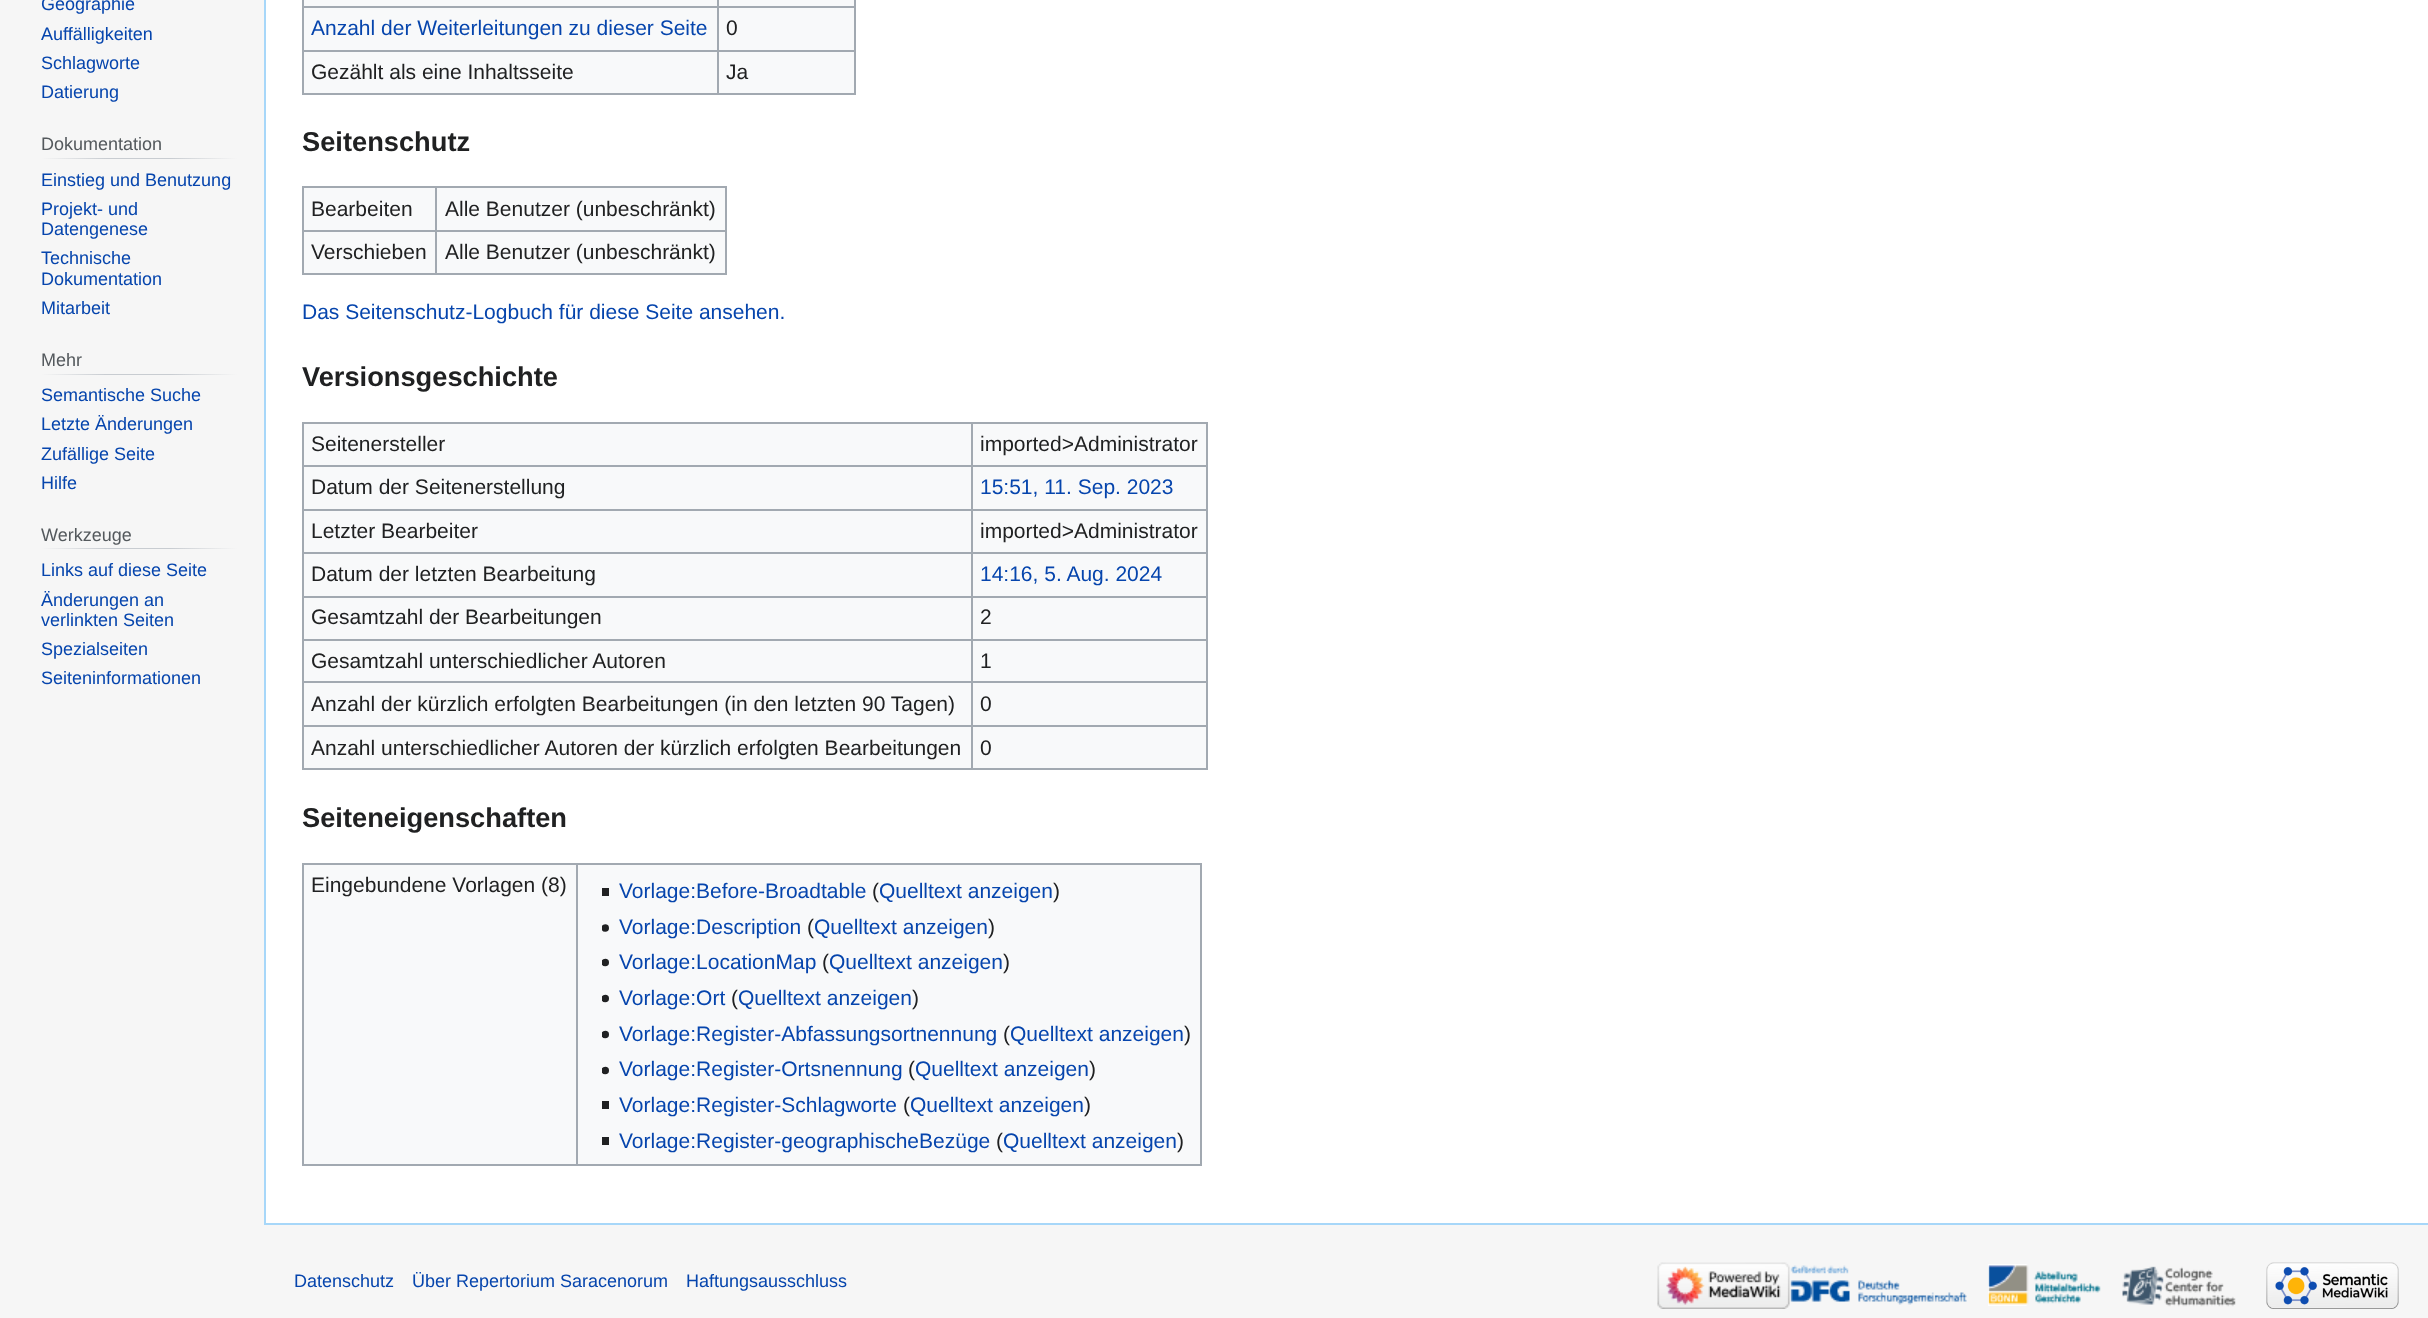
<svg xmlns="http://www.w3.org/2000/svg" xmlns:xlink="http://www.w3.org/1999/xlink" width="2428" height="1318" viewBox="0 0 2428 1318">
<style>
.cls-1{font:18px Liberation Sans;fill:#0645ad}
.cls-2{font:18px Liberation Sans;fill:#54595d}
.cls-3{font:21px Liberation Sans;fill:#0645ad}
.cls-4{font:21px Liberation Sans;fill:#202122}
.cls-5{font:bold 27.25px Liberation Sans;fill:#202122}
</style>
<defs>
<linearGradient id="g1" gradientUnits="userSpaceOnUse" x1="41" y1="158" x2="237" y2="158"><stop offset="0" stop-color="#f6f6f6"/><stop offset="0.33" stop-color="#c8ccd1"/><stop offset="0.66" stop-color="#c8ccd1"/><stop offset="1" stop-color="#f6f6f6"/></linearGradient>
<linearGradient id="g2" gradientUnits="userSpaceOnUse" x1="41" y1="374" x2="237" y2="374"><stop offset="0" stop-color="#f6f6f6"/><stop offset="0.33" stop-color="#c8ccd1"/><stop offset="0.66" stop-color="#c8ccd1"/><stop offset="1" stop-color="#f6f6f6"/></linearGradient>
<linearGradient id="g3" gradientUnits="userSpaceOnUse" x1="41" y1="548" x2="237" y2="548"><stop offset="0" stop-color="#f6f6f6"/><stop offset="0.33" stop-color="#c8ccd1"/><stop offset="0.66" stop-color="#c8ccd1"/><stop offset="1" stop-color="#f6f6f6"/></linearGradient>
</defs>
<rect width="100%" height="100%" fill="#f6f6f6"/>
<rect fill="url(#g1)" x="41" y="158" width="196" height="1"/>
<rect fill="url(#g2)" x="41" y="374" width="196" height="1"/>
<rect fill="url(#g3)" x="41" y="548" width="196" height="1"/>
<rect fill="#ffffff" x="266" y="0" width="2162" height="1223"/>
<rect fill="#a7d7f9" x="264" y="1223" width="2164" height="2"/>
<rect fill="#a7d7f9" x="264" y="0" width="2" height="1224"/>
<rect fill="#f8f9fa" x="304" y="0" width="550" height="93"/>
<rect fill="#a2a9b1" x="854" y="0" width="2" height="95"/>
<rect fill="#a2a9b1" x="302" y="93" width="553" height="2"/>
<rect fill="#a2a9b1" x="302" y="0" width="2" height="95"/>
<rect fill="#a2a9b1" x="717" y="6" width="138" height="2"/>
<rect fill="#a2a9b1" x="717" y="50" width="138" height="2"/>
<rect fill="#a2a9b1" x="717" y="50" width="2" height="45"/>
<rect fill="#a2a9b1" x="302" y="50" width="417" height="2"/>
<rect fill="#a2a9b1" x="717" y="6" width="2" height="45"/>
<rect fill="#a2a9b1" x="302" y="6" width="417" height="2"/>
<rect fill="#a2a9b1" x="717" y="0" width="2" height="8"/>
<rect fill="#f8f9fa" x="304" y="188" width="421" height="85"/>
<rect fill="#a2a9b1" x="302" y="186" width="424" height="2"/>
<rect fill="#a2a9b1" x="725" y="186" width="2" height="89"/>
<rect fill="#a2a9b1" x="302" y="273" width="424" height="2"/>
<rect fill="#a2a9b1" x="302" y="186" width="2" height="89"/>
<rect fill="#a2a9b1" x="435" y="230" width="291" height="2"/>
<rect fill="#a2a9b1" x="435" y="230" width="2" height="45"/>
<rect fill="#a2a9b1" x="302" y="230" width="135" height="2"/>
<rect fill="#a2a9b1" x="435" y="186" width="2" height="45"/>
<rect fill="#f8f9fa" x="304" y="424" width="902" height="344"/>
<rect fill="#a2a9b1" x="302" y="422" width="906" height="2"/>
<rect fill="#a2a9b1" x="1206" y="422" width="2" height="348"/>
<rect fill="#a2a9b1" x="302" y="768" width="906" height="2"/>
<rect fill="#a2a9b1" x="302" y="422" width="2" height="348"/>
<rect fill="#a2a9b1" x="971" y="465" width="237" height="2"/>
<rect fill="#a2a9b1" x="971" y="509" width="237" height="2"/>
<rect fill="#a2a9b1" x="971" y="552" width="237" height="2"/>
<rect fill="#a2a9b1" x="971" y="596" width="237" height="2"/>
<rect fill="#a2a9b1" x="971" y="639" width="237" height="2"/>
<rect fill="#a2a9b1" x="971" y="681" width="237" height="2"/>
<rect fill="#a2a9b1" x="971" y="725" width="237" height="2"/>
<rect fill="#a2a9b1" x="971" y="725" width="2" height="45"/>
<rect fill="#a2a9b1" x="302" y="725" width="670" height="2"/>
<rect fill="#a2a9b1" x="971" y="681" width="2" height="45"/>
<rect fill="#a2a9b1" x="302" y="681" width="670" height="2"/>
<rect fill="#a2a9b1" x="971" y="639" width="2" height="44"/>
<rect fill="#a2a9b1" x="302" y="639" width="670" height="2"/>
<rect fill="#a2a9b1" x="971" y="596" width="2" height="45"/>
<rect fill="#a2a9b1" x="302" y="596" width="670" height="2"/>
<rect fill="#a2a9b1" x="971" y="552" width="2" height="45"/>
<rect fill="#a2a9b1" x="302" y="552" width="670" height="2"/>
<rect fill="#a2a9b1" x="971" y="509" width="2" height="45"/>
<rect fill="#a2a9b1" x="302" y="509" width="670" height="2"/>
<rect fill="#a2a9b1" x="971" y="465" width="2" height="45"/>
<rect fill="#a2a9b1" x="302" y="465" width="670" height="2"/>
<rect fill="#a2a9b1" x="971" y="422" width="2" height="45"/>
<rect fill="#f8f9fa" x="304" y="865" width="896" height="299"/>
<rect fill="#a2a9b1" x="302" y="863" width="900" height="2"/>
<rect fill="#a2a9b1" x="1200" y="863" width="2" height="303"/>
<rect fill="#a2a9b1" x="302" y="1164" width="900" height="2"/>
<rect fill="#a2a9b1" x="302" y="863" width="2" height="303"/>
<rect fill="#a2a9b1" x="576" y="863" width="2" height="303"/>
<rect fill="#202122" x="602" y="888" width="7" height="8"/>
<image xlink:href="image0.png" x="602" y="924" width="7" height="8"/>
<image xlink:href="image1.png" x="602" y="958" width="7" height="9"/>
<image xlink:href="image1.png" x="602" y="994" width="7" height="9"/>
<image xlink:href="image1.png" x="602" y="1030" width="7" height="9"/>
<image xlink:href="image1.png" x="602" y="1066" width="7" height="9"/>
<rect fill="#202122" x="602" y="1101" width="7" height="8"/>
<rect fill="#202122" x="602" y="1137" width="7" height="8"/>
<image xlink:href="image2.png" x="1657" y="1262" width="133" height="47"/>
<image xlink:href="image3.png" x="1790" y="1265" width="177" height="40"/>
<image xlink:href="image4.png" x="1988" y="1264" width="113" height="42"/>
<image xlink:href="image5.png" x="2122" y="1266" width="114" height="41"/>
<image xlink:href="image6.png" x="2266" y="1262" width="133" height="47"/>
<text class="cls-1"><tspan x="41" y="10">Geographie</tspan><tspan x="41" y="40">Auffälligkeiten</tspan><tspan x="41" y="69">Schlagworte</tspan><tspan x="41" y="98">Datierung</tspan></text>
<text class="cls-2" x="41" y="150">Dokumentation</text>
<text class="cls-1"><tspan x="41" y="186">Einstieg und Benutzung</tspan><tspan x="41" y="215">Projekt- und</tspan><tspan x="41" y="235">Datengenese</tspan><tspan x="41" y="264">Technische</tspan><tspan x="41" y="285">Dokumentation</tspan><tspan x="41" y="314">Mitarbeit</tspan></text>
<text class="cls-2" x="41" y="366">Mehr</text>
<text class="cls-1"><tspan x="41" y="401">Semantische Suche</tspan><tspan x="41" y="430">Letzte Änderungen</tspan><tspan x="41" y="460">Zufällige Seite</tspan><tspan x="41" y="489">Hilfe</tspan></text>
<text class="cls-2" x="41" y="541">Werkzeuge</text>
<text class="cls-1"><tspan x="41" y="576">Links auf diese Seite</tspan><tspan x="41" y="606">Änderungen an</tspan><tspan x="41" y="626">verlinkten Seiten</tspan><tspan x="41" y="655">Spezialseiten</tspan><tspan x="41" y="684">Seiteninformationen</tspan></text>
<text class="cls-3" x="311" y="35">Anzahl der Weiterleitungen zu dieser Seite</text>
<text class="cls-4" x="726" y="35">0</text>
<text class="cls-4" x="311" y="79">Gezählt als eine Inhaltsseite</text>
<text class="cls-4" x="726" y="79">Ja</text>
<text class="cls-5" x="302" y="151">Seitenschutz</text>
<text class="cls-4" x="311" y="216">Bearbeiten</text>
<text class="cls-4" x="445" y="216">Alle Benutzer (unbeschränkt)</text>
<text class="cls-4" x="311" y="259">Verschieben</text>
<text class="cls-4" x="445" y="259">Alle Benutzer (unbeschränkt)</text>
<text class="cls-3" x="302" y="319">Das Seitenschutz-Logbuch für diese Seite ansehen.</text>
<text class="cls-5" x="302" y="386">Versionsgeschichte</text>
<text class="cls-4" x="311" y="451">Seitenersteller</text>
<text class="cls-4" x="980" y="451">imported&gt;Administrator</text>
<text class="cls-4" x="311" y="494">Datum der Seitenerstellung</text>
<text class="cls-3" x="980" y="494">15:51, 11. Sep. 2023</text>
<text class="cls-4" x="311" y="538">Letzter Bearbeiter</text>
<text class="cls-4" x="980" y="538">imported&gt;Administrator</text>
<text class="cls-4" x="311" y="581">Datum der letzten Bearbeitung</text>
<text class="cls-3" x="980" y="581">14:16, 5. Aug. 2024</text>
<text class="cls-4" x="311" y="624">Gesamtzahl der Bearbeitungen</text>
<text class="cls-4" x="980" y="624">2</text>
<text class="cls-4" x="311" y="668">Gesamtzahl unterschiedlicher Autoren</text>
<text class="cls-4" x="980" y="668">1</text>
<text class="cls-4" x="311" y="711">Anzahl der kürzlich erfolgten Bearbeitungen (in den letzten 90 Tagen)</text>
<text class="cls-4" x="980" y="711">0</text>
<text class="cls-4" x="311" y="755">Anzahl unterschiedlicher Autoren der kürzlich erfolgten Bearbeitungen</text>
<text class="cls-4" x="980" y="755">0</text>
<text class="cls-5" x="302" y="827">Seiteneigenschaften</text>
<text class="cls-4" x="311" y="892">Eingebundene Vorlagen (8)</text>
<text class="cls-3" x="619" y="898">Vorlage:Before-Broadtable</text>
<text class="cls-4" x="872" y="898">(</text>
<text class="cls-3" x="879" y="898">Quelltext anzeigen</text>
<text class="cls-4" x="1053" y="898">)</text>
<text class="cls-3" x="619" y="934">Vorlage:Description</text>
<text class="cls-4" x="807" y="934">(</text>
<text class="cls-3" x="814" y="934">Quelltext anzeigen</text>
<text class="cls-4" x="988" y="934">)</text>
<text class="cls-3" x="619" y="969">Vorlage:LocationMap</text>
<text class="cls-4" x="822" y="969">(</text>
<text class="cls-3" x="829" y="969">Quelltext anzeigen</text>
<text class="cls-4" x="1003" y="969">)</text>
<text class="cls-3" x="619" y="1005">Vorlage:Ort</text>
<text class="cls-4" x="731" y="1005">(</text>
<text class="cls-3" x="738" y="1005">Quelltext anzeigen</text>
<text class="cls-4" x="912" y="1005">)</text>
<text class="cls-3" x="619" y="1041">Vorlage:Register-Abfassungsortnennung</text>
<text class="cls-4" x="1003" y="1041">(</text>
<text class="cls-3" x="1010" y="1041">Quelltext anzeigen</text>
<text class="cls-4" x="1184" y="1041">)</text>
<text class="cls-3" x="619" y="1076">Vorlage:Register-Ortsnennung</text>
<text class="cls-4" x="908" y="1076">(</text>
<text class="cls-3" x="915" y="1076">Quelltext anzeigen</text>
<text class="cls-4" x="1089" y="1076">)</text>
<text class="cls-3" x="619" y="1112">Vorlage:Register-Schlagworte</text>
<text class="cls-4" x="903" y="1112">(</text>
<text class="cls-3" x="910" y="1112">Quelltext anzeigen</text>
<text class="cls-4" x="1084" y="1112">)</text>
<text class="cls-3" x="619" y="1148">Vorlage:Register-geographischeBezüge</text>
<text class="cls-4" x="996" y="1148">(</text>
<text class="cls-3" x="1003" y="1148">Quelltext anzeigen</text>
<text class="cls-4" x="1177" y="1148">)</text>
<text class="cls-1" x="294" y="1287">Datenschutz</text>
<text class="cls-1" x="412" y="1287">Über Repertorium Saracenorum</text>
<text class="cls-1" x="686" y="1287">Haftungsausschluss</text>
</svg>
